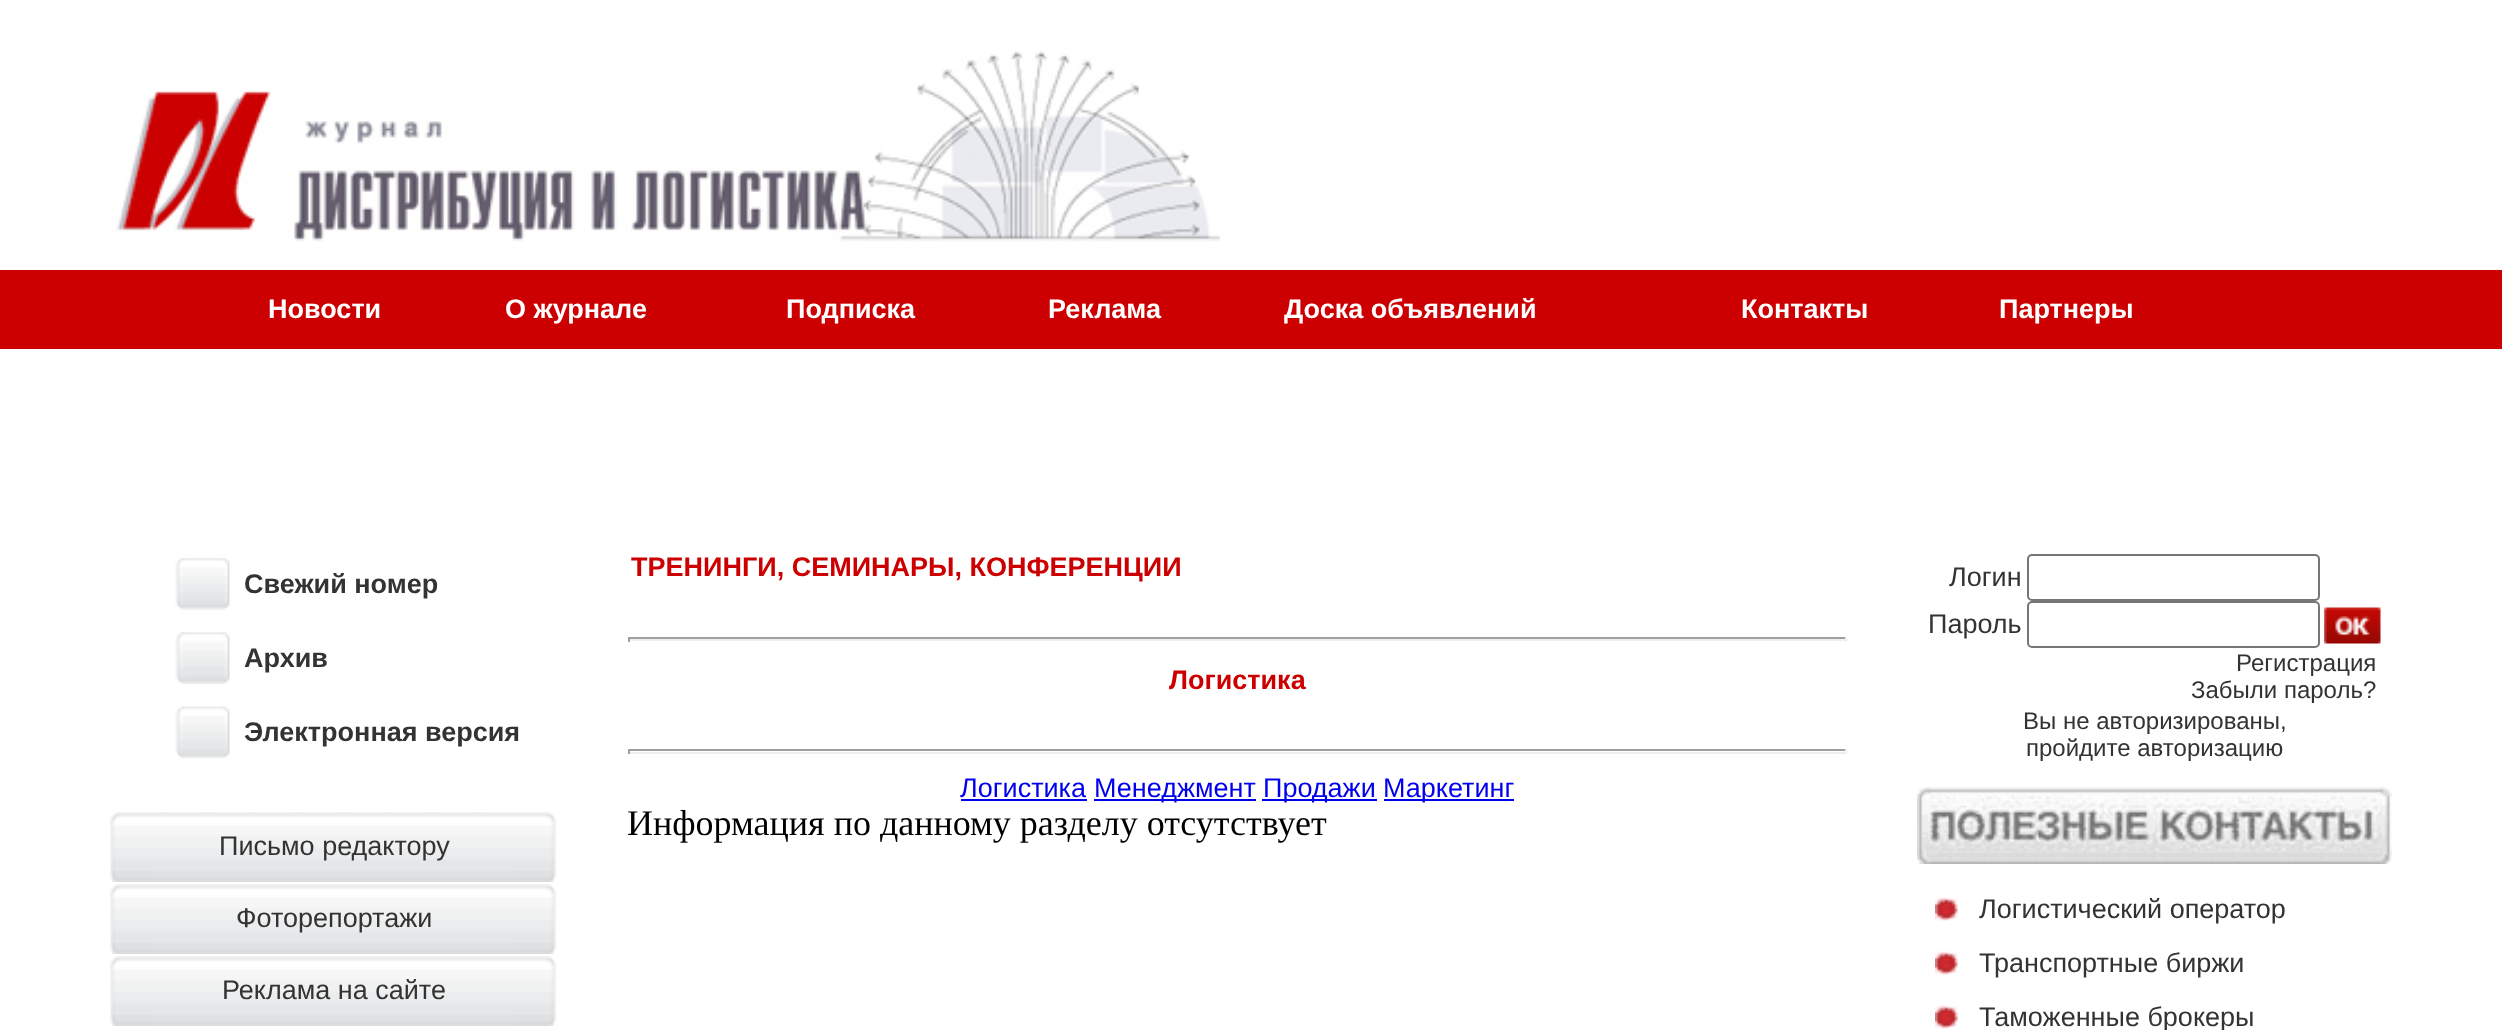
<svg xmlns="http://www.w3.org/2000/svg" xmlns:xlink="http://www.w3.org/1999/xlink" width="2502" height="1030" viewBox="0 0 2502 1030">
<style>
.cls-1{font:bold 27px Liberation Sans;fill:#ffffff}
.cls-2{font:bold 27px Liberation Sans;fill:#333333}
.cls-3{font:27px Liberation Sans;fill:#333333}
.cls-4{font:bold 27px Liberation Sans;fill:#cc0000}
.cls-5{font:27px Liberation Sans;fill:#0000ee}
.cls-6{font:36px Liberation Serif;fill:#000000}
.cls-7{font:24px Liberation Sans;fill:#333333}
</style>
<rect width="100%" height="100%" fill="#ffffff"/>
<image xlink:href="image0.png" x="116" y="51" width="1105" height="191"/>
<rect fill="#cc0000" x="0" y="270" width="2502" height="79"/>
<image xlink:href="image1.png" x="175" y="558" width="55" height="52"/>
<image xlink:href="image2.png" x="175" y="632" width="55" height="52"/>
<image xlink:href="image3.png" x="175" y="706" width="55" height="53"/>
<image xlink:href="image4.png" x="110" y="812" width="43" height="70"/>
<image xlink:href="image5.png" x="153" y="812" width="360" height="70"/>
<image xlink:href="image6.png" x="513" y="812" width="44" height="70"/>
<image xlink:href="image7.png" x="110" y="884" width="43" height="70"/>
<image xlink:href="image8.png" x="153" y="884" width="360" height="70"/>
<image xlink:href="image9.png" x="513" y="884" width="44" height="70"/>
<image xlink:href="image7.png" x="110" y="956" width="43" height="70"/>
<image xlink:href="image10.png" x="153" y="956" width="360" height="70"/>
<image xlink:href="image9.png" x="513" y="956" width="44" height="70"/>
<rect fill="#9f9f9f" x="628" y="637" width="1219" height="2"/>
<rect fill="#eeeeee" x="1845" y="637" width="2" height="5"/>
<rect fill="#eeeeee" x="628" y="639" width="1219" height="2"/>
<rect fill="#9f9f9f" x="628" y="637" width="2" height="5"/>
<rect fill="#9f9f9f" x="628" y="749" width="1219" height="2"/>
<rect fill="#eeeeee" x="1845" y="749" width="2" height="5"/>
<rect fill="#eeeeee" x="628" y="752" width="1219" height="2"/>
<rect fill="#9f9f9f" x="628" y="749" width="2" height="5"/>
<rect fill="#0000ee" x="961" y="799" width="126" height="2"/>
<rect fill="#0000ee" x="1094" y="799" width="162" height="2"/>
<rect fill="#0000ee" x="1262" y="799" width="115" height="2"/>
<rect fill="#0000ee" x="1384" y="799" width="130" height="2"/>
<rect fill="none" stroke="#767676" stroke-width="2" x="2028" y="555" width="291" height="45" rx="4"/>
<rect fill="none" stroke="#767676" stroke-width="2" x="2028" y="602" width="291" height="45" rx="4"/>
<image xlink:href="image11.png" x="2324" y="607" width="57" height="37"/>
<image xlink:href="image12.png" x="1917" y="787" width="475" height="77"/>
<image xlink:href="image13.png" x="1935" y="897" width="23" height="24"/>
<image xlink:href="image13.png" x="1935" y="951" width="23" height="24"/>
<image xlink:href="image13.png" x="1935" y="1005" width="23" height="24"/>
<text class="cls-1" x="268" y="318">Новости</text>
<text class="cls-1" x="505" y="318">О журнале</text>
<text class="cls-1" x="786" y="318">Подписка</text>
<text class="cls-1" x="1048" y="318">Реклама</text>
<text class="cls-1" x="1284" y="318">Доска объявлений</text>
<text class="cls-1" x="1741" y="318">Контакты</text>
<text class="cls-1" x="1999" y="318">Партнеры</text>
<text class="cls-2" x="244" y="593">Свежий номер</text>
<text class="cls-2" x="244" y="667">Архив</text>
<text class="cls-2" x="244" y="741">Электронная версия</text>
<text class="cls-3" x="219" y="855">Письмо редактору</text>
<text class="cls-3" x="236" y="927">Фоторепортажи</text>
<text class="cls-3" x="222" y="999">Реклама на сайте</text>
<text class="cls-4" x="631" y="576">ТРЕНИНГИ, СЕМИНАРЫ, КОНФЕРЕНЦИИ</text>
<text class="cls-4" x="1169" y="689">Логистика</text>
<text class="cls-5" x="960" y="797">Логистика</text>
<text class="cls-5" x="1094" y="797">Менеджмент</text>
<text class="cls-5" x="1263" y="797">Продажи</text>
<text class="cls-5" x="1383" y="797">Маркетинг</text>
<text class="cls-6" x="627" y="835">Информация по данному разделу отсутствует</text>
<text class="cls-3" x="1949" y="586">Логин</text>
<text class="cls-3" x="1928" y="633">Пароль</text>
<text class="cls-7" x="2236" y="671">Регистрация</text>
<text class="cls-7" x="2191" y="698">Забыли пароль?</text>
<text class="cls-7" x="2023" y="729">Вы не авторизированы,</text>
<text class="cls-7" x="2026" y="756">пройдите авторизацию</text>
<text class="cls-3" x="1979" y="918">Логистический оператор</text>
<text class="cls-3" x="1979" y="972">Транспортные биржи</text>
<text class="cls-3" x="1979" y="1026">Таможенные брокеры</text>
</svg>
